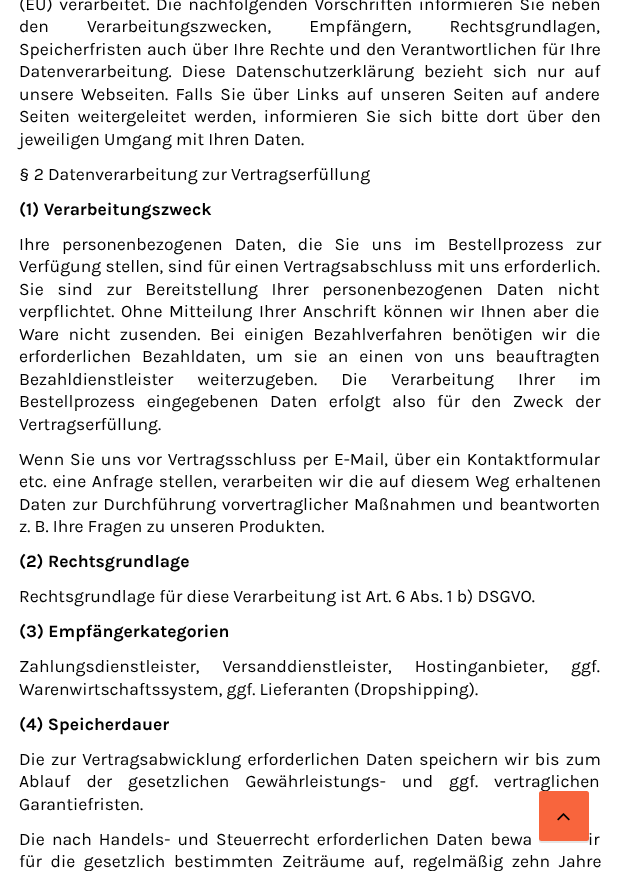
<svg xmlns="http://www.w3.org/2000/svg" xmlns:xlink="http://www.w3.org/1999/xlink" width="618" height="871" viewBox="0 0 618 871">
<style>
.cls-1{font:17.5px Karla;fill:#000000}
.cls-2{font:bold 17.5px Karla;fill:#000000}
</style>
<rect width="100%" height="100%" fill="#ffffff"/>
<rect fill="#000000" fill-opacity="0.1" filter="blur(0.5px)" x="539" y="793" width="50" height="50" rx="2.5"/>
<text class="cls-1"><tspan x="19" y="10" word-spacing="2.5">(EU) verarbeitet. Die nachfolgenden Vorschriften informieren Sie neben</tspan><tspan x="19" y="32" word-spacing="34">den Verarbeitungszwecken, Empfängern, Rechtsgrundlagen,</tspan><tspan x="19" y="55" word-spacing="1">Speicherfristen auch über Ihre Rechte und den Verantwortlichen für Ihre</tspan><tspan x="19" y="77" word-spacing="5.75">Datenverarbeitung. Diese Datenschutzerklärung bezieht sich nur auf</tspan><tspan x="19" y="100" word-spacing="3.25">unsere Webseiten. Falls Sie über Links auf unseren Seiten auf andere</tspan><tspan x="19" y="122" word-spacing="3.75">Seiten weitergeleitet werden, informieren Sie sich bitte dort über den</tspan><tspan x="19" y="145">jeweiligen Umgang mit Ihren Daten.</tspan></text>
<text class="cls-1" x="19" y="180">§ 2 Datenverarbeitung zur Vertragserfüllung</text>
<text class="cls-2" x="19" y="215">(1) Verarbeitungszweck</text>
<text class="cls-1"><tspan x="19" y="250" word-spacing="8">Ihre personenbezogenen Daten, die Sie uns im Bestellprozess zur</tspan><tspan x="19" y="272" word-spacing="0.25">Verfügung stellen, sind für einen Vertragsabschluss mit uns erforderlich.</tspan><tspan x="19" y="295" word-spacing="9.5">Sie sind zur Bereitstellung Ihrer personenbezogenen Daten nicht</tspan><tspan x="19" y="317" word-spacing="2.5">verpflichtet. Ohne Mitteilung Ihrer Anschrift können wir Ihnen aber die</tspan><tspan x="19" y="340" word-spacing="5.25">Ware nicht zusenden. Bei einigen Bezahlverfahren benötigen wir die</tspan><tspan x="19" y="362" word-spacing="6.75">erforderlichen Bezahldaten, um sie an einen von uns beauftragten</tspan><tspan x="19" y="385" word-spacing="20">Bezahldienstleister weiterzugeben. Die Verarbeitung Ihrer im</tspan><tspan x="19" y="407" word-spacing="7.25">Bestellprozess eingegebenen Daten erfolgt also für den Zweck der</tspan><tspan x="19" y="430">Vertragserfüllung.</tspan></text>
<text class="cls-1"><tspan x="19" y="465" word-spacing="1.75">Wenn Sie uns vor Vertragsschluss per E-Mail, über ein Kontaktformular</tspan><tspan x="19" y="487" word-spacing="1.5">etc. eine Anfrage stellen, verarbeiten wir die auf diesem Weg erhaltenen</tspan><tspan x="19" y="510" word-spacing="1.75">Daten zur Durchführung vorvertraglicher Maßnahmen und beantworten</tspan><tspan x="19" y="532">z. B. Ihre Fragen zu unseren Produkten.</tspan></text>
<text class="cls-2" x="19" y="567">(2) Rechtsgrundlage</text>
<text class="cls-1" x="19" y="602">Rechtsgrundlage für diese Verarbeitung ist Art. 6 Abs. 1 b) DSGVO.</text>
<text class="cls-2" x="19" y="637">(3) Empfängerkategorien</text>
<text class="cls-1"><tspan x="19" y="672" word-spacing="19">Zahlungsdienstleister, Versanddienstleister, Hostinganbieter, ggf.</tspan><tspan x="19" y="695">Warenwirtschaftssystem, ggf. Lieferanten (Dropshipping).</tspan></text>
<text class="cls-2" x="19" y="730">(4) Speicherdauer</text>
<text class="cls-1"><tspan x="19" y="765" word-spacing="2">Die zur Vertragsabwicklung erforderlichen Daten speichern wir bis zum</tspan><tspan x="19" y="787" word-spacing="11.75">Ablauf der gesetzlichen Gewährleistungs- und ggf. vertraglichen</tspan><tspan x="19" y="810">Garantiefristen.</tspan></text>
<text class="cls-1" x="19" y="845" word-spacing="3">Die nach Handels- und Steuerrecht erforderlichen Daten bewa</text>
<text class="cls-1" x="588" y="845" word-spacing="3">ir</text>
<text class="cls-1" x="19" y="867" word-spacing="4.5">für die gesetzlich bestimmten Zeiträume auf, regelmäßig zehn Jahre</text>
<rect fill="#f8653d" x="539" y="791" width="50" height="50" rx="2.5"/>
<image xlink:href="image0.png" x="557" y="813" width="13" height="8"/>
</svg>
